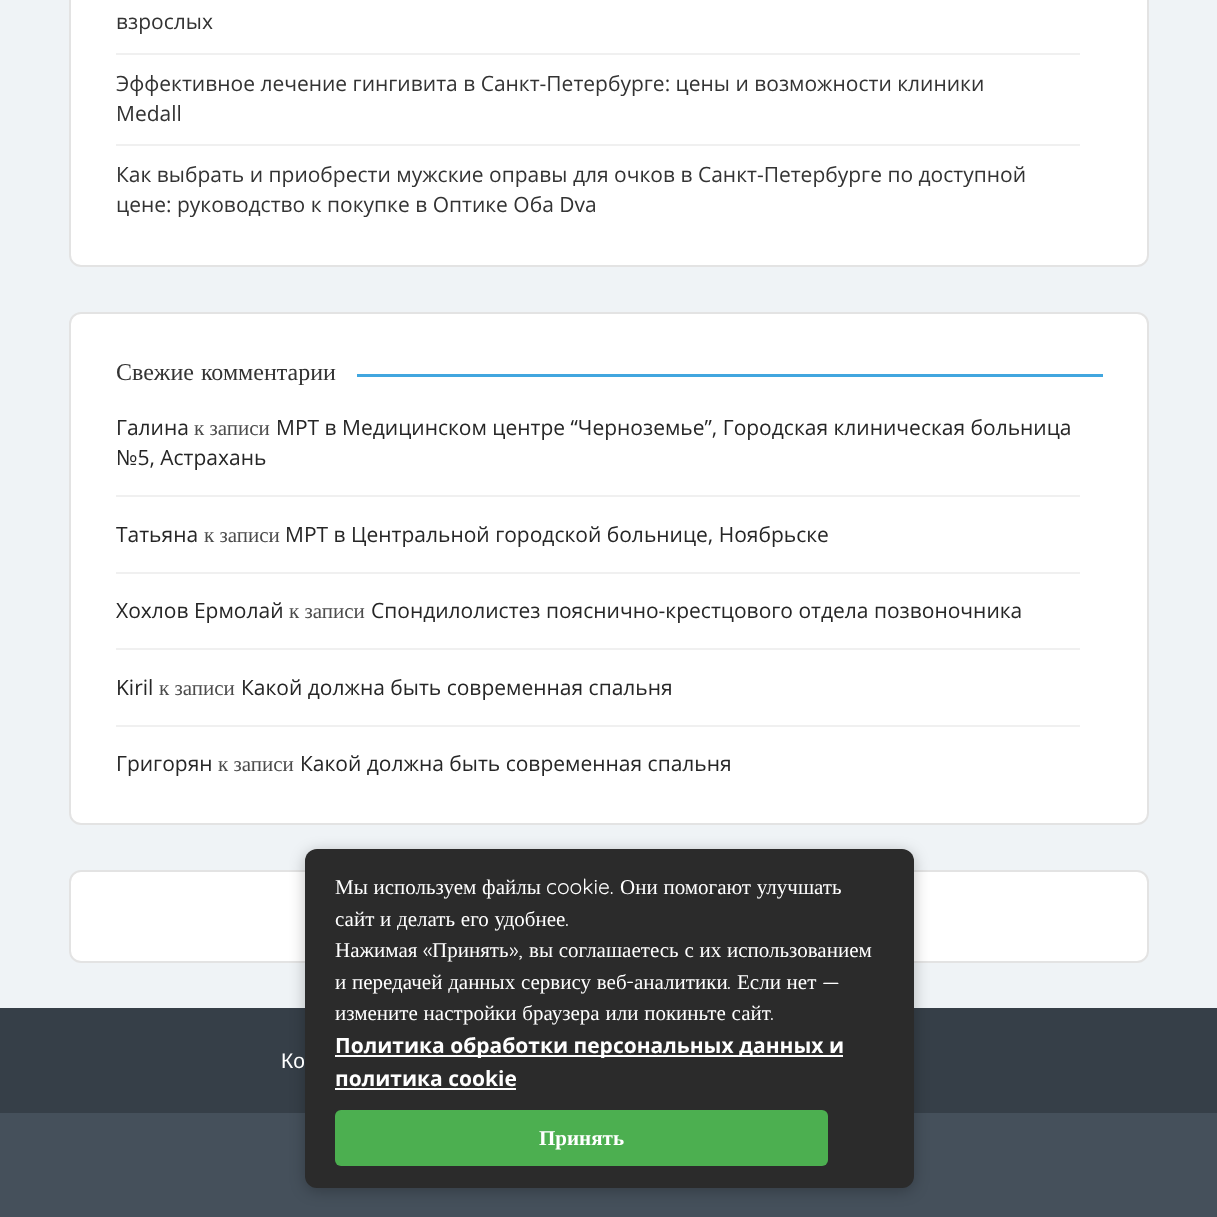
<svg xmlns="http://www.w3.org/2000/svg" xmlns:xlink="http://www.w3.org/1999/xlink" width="1217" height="1217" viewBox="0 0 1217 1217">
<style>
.cls-1{font:21px Open Sans;fill:#333333}
.cls-2{font:24px Liberation Serif;fill:#333333}
.cls-3{font:21px Open Sans;fill:#262626}
.cls-4{font:21px Liberation Serif;fill:#4c4c4c}
.cls-5{font:21px Liberation Sans;fill:#ffffff}
.cls-6{font:21px Liberation Serif;fill:#ffffff}
.cls-7{font:300 21px Quicksand;fill:#ffffff}
.cls-8{font:bold 21px Open Sans;fill:#ffffff}
.cls-9{font:bold 21px Liberation Serif;fill:#ffffff}
</style>
<rect width="100%" height="100%" fill="#363f48"/>
<rect fill="#eff3f6" x="0" y="0" width="1217" height="1008"/>
<rect fill="#ffffff" stroke="#e3e3e3" stroke-width="2" x="70" y="-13" width="1078" height="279" rx="11"/>
<rect fill="#f0f0f0" x="116" y="53" width="964" height="2"/>
<rect fill="#f0f0f0" x="116" y="144" width="964" height="2"/>
<rect fill="#ffffff" stroke="#e3e3e3" stroke-width="2" x="70" y="313" width="1078" height="511" rx="11"/>
<rect fill="#41a6df" x="357" y="374" width="746" height="3"/>
<rect fill="#f0f0f0" x="116" y="495" width="964" height="2"/>
<rect fill="#f0f0f0" x="116" y="572" width="964" height="2"/>
<rect fill="#f0f0f0" x="116" y="648" width="964" height="2"/>
<rect fill="#f0f0f0" x="116" y="725" width="964" height="2"/>
<rect fill="#ffffff" stroke="#e3e3e3" stroke-width="2" x="70" y="871" width="1078" height="91" rx="11"/>
<rect fill="#45505b" x="0" y="1113" width="1217" height="104"/>
<rect fill="#000000" fill-opacity="0.25" filter="blur(7.5px)" x="305" y="852" width="609" height="339" rx="12"/>
<rect fill="#2b2b2b" x="305" y="849" width="609" height="339" rx="12"/>
<rect fill="#fefefe" x="335" y="1055" width="508" height="2"/>
<rect fill="#fefefe" x="335" y="1088" width="181" height="2"/>
<rect fill="#4caf50" x="335" y="1110" width="493" height="56" rx="6"/>
<text class="cls-1" x="116" y="29">взрослых</text>
<text class="cls-1"><tspan x="116" y="91">Эффективное лечение гингивита в Санкт-Петербурге: цены и возможности клиники</tspan><tspan x="116" y="121">Medall</tspan></text>
<text class="cls-1"><tspan x="116" y="182">Как выбрать и приобрести мужские оправы для очков в Санкт-Петербурге по доступной</tspan><tspan x="116" y="212">цене: руководство к покупке в Оптике Оба Dva</tspan></text>
<text class="cls-2" x="116" y="380" word-spacing="1">Свежие комментарии</text>
<text class="cls-3" x="116" y="435">Галина</text>
<text class="cls-4" x="194" y="435">к записи</text>
<text class="cls-3" x="276" y="435">МРТ в Медицинском центре “Черноземье”, Городская клиническая больница</text>
<text class="cls-3" x="116" y="465">№5, Астрахань</text>
<text class="cls-3" x="116" y="542">Татьяна</text>
<text class="cls-4" x="204" y="542">к записи</text>
<text class="cls-3" x="285" y="542">МРТ в Центральной городской больнице, Ноябрьске</text>
<text class="cls-3" x="116" y="618">Хохлов Ермолай</text>
<text class="cls-4" x="289" y="618">к записи</text>
<text class="cls-3" x="371" y="618">Cпондилолистез пояснично-крестцового отдела позвоночника</text>
<text class="cls-3" x="116" y="695">Kiril</text>
<text class="cls-4" x="159" y="695">к записи</text>
<text class="cls-3" x="241" y="695">Какой должна быть современная спальня</text>
<text class="cls-3" x="116" y="771">Григорян</text>
<text class="cls-4" x="218" y="771">к записи</text>
<text class="cls-3" x="300" y="771">Какой должна быть современная спальня</text>
<text class="cls-5" x="281" y="1068">Ко</text>
<text class="cls-6" x="335" y="894" word-spacing="0.5">Мы используем файлы</text>
<text class="cls-7" x="546" y="894">cookie.</text>
<text class="cls-6" x="620" y="894" word-spacing="0.5">Они помогают улучшать</text>
<text class="cls-6" x="335" y="926" word-spacing="0.5">сайт и делать его удобнее</text>
<text class="cls-7" x="565" y="926">.</text>
<text class="cls-6" x="335" y="957">Нажимая</text>
<text class="cls-7" x="423" y="957">«</text>
<text class="cls-6" x="432" y="957">Принять</text>
<text class="cls-7" x="509" y="957">»,</text>
<text class="cls-6" x="529" y="957" word-spacing="0.5">вы соглашаетесь с их использованием</text>
<text class="cls-6" x="335" y="989" word-spacing="0.5">и передачей данных сервису веб</text>
<text class="cls-7" x="626" y="989">-</text>
<text class="cls-6" x="634" y="989">аналитики</text>
<text class="cls-6" x="737" y="989" word-spacing="0.5">Если нет</text>
<text class="cls-7" x="822" y="989">—</text>
<text class="cls-7" x="727" y="989">.</text>
<text class="cls-6" x="335" y="1020" word-spacing="0.5">измените настройки браузера или покиньте сайт</text>
<text class="cls-7" x="770" y="1020">.</text>
<text class="cls-8"><tspan x="335" y="1053">Политика обработки персональных данных и</tspan><tspan x="335" y="1086">политика cookie</tspan></text>
<text class="cls-9" x="539" y="1145">Принять</text>
</svg>
